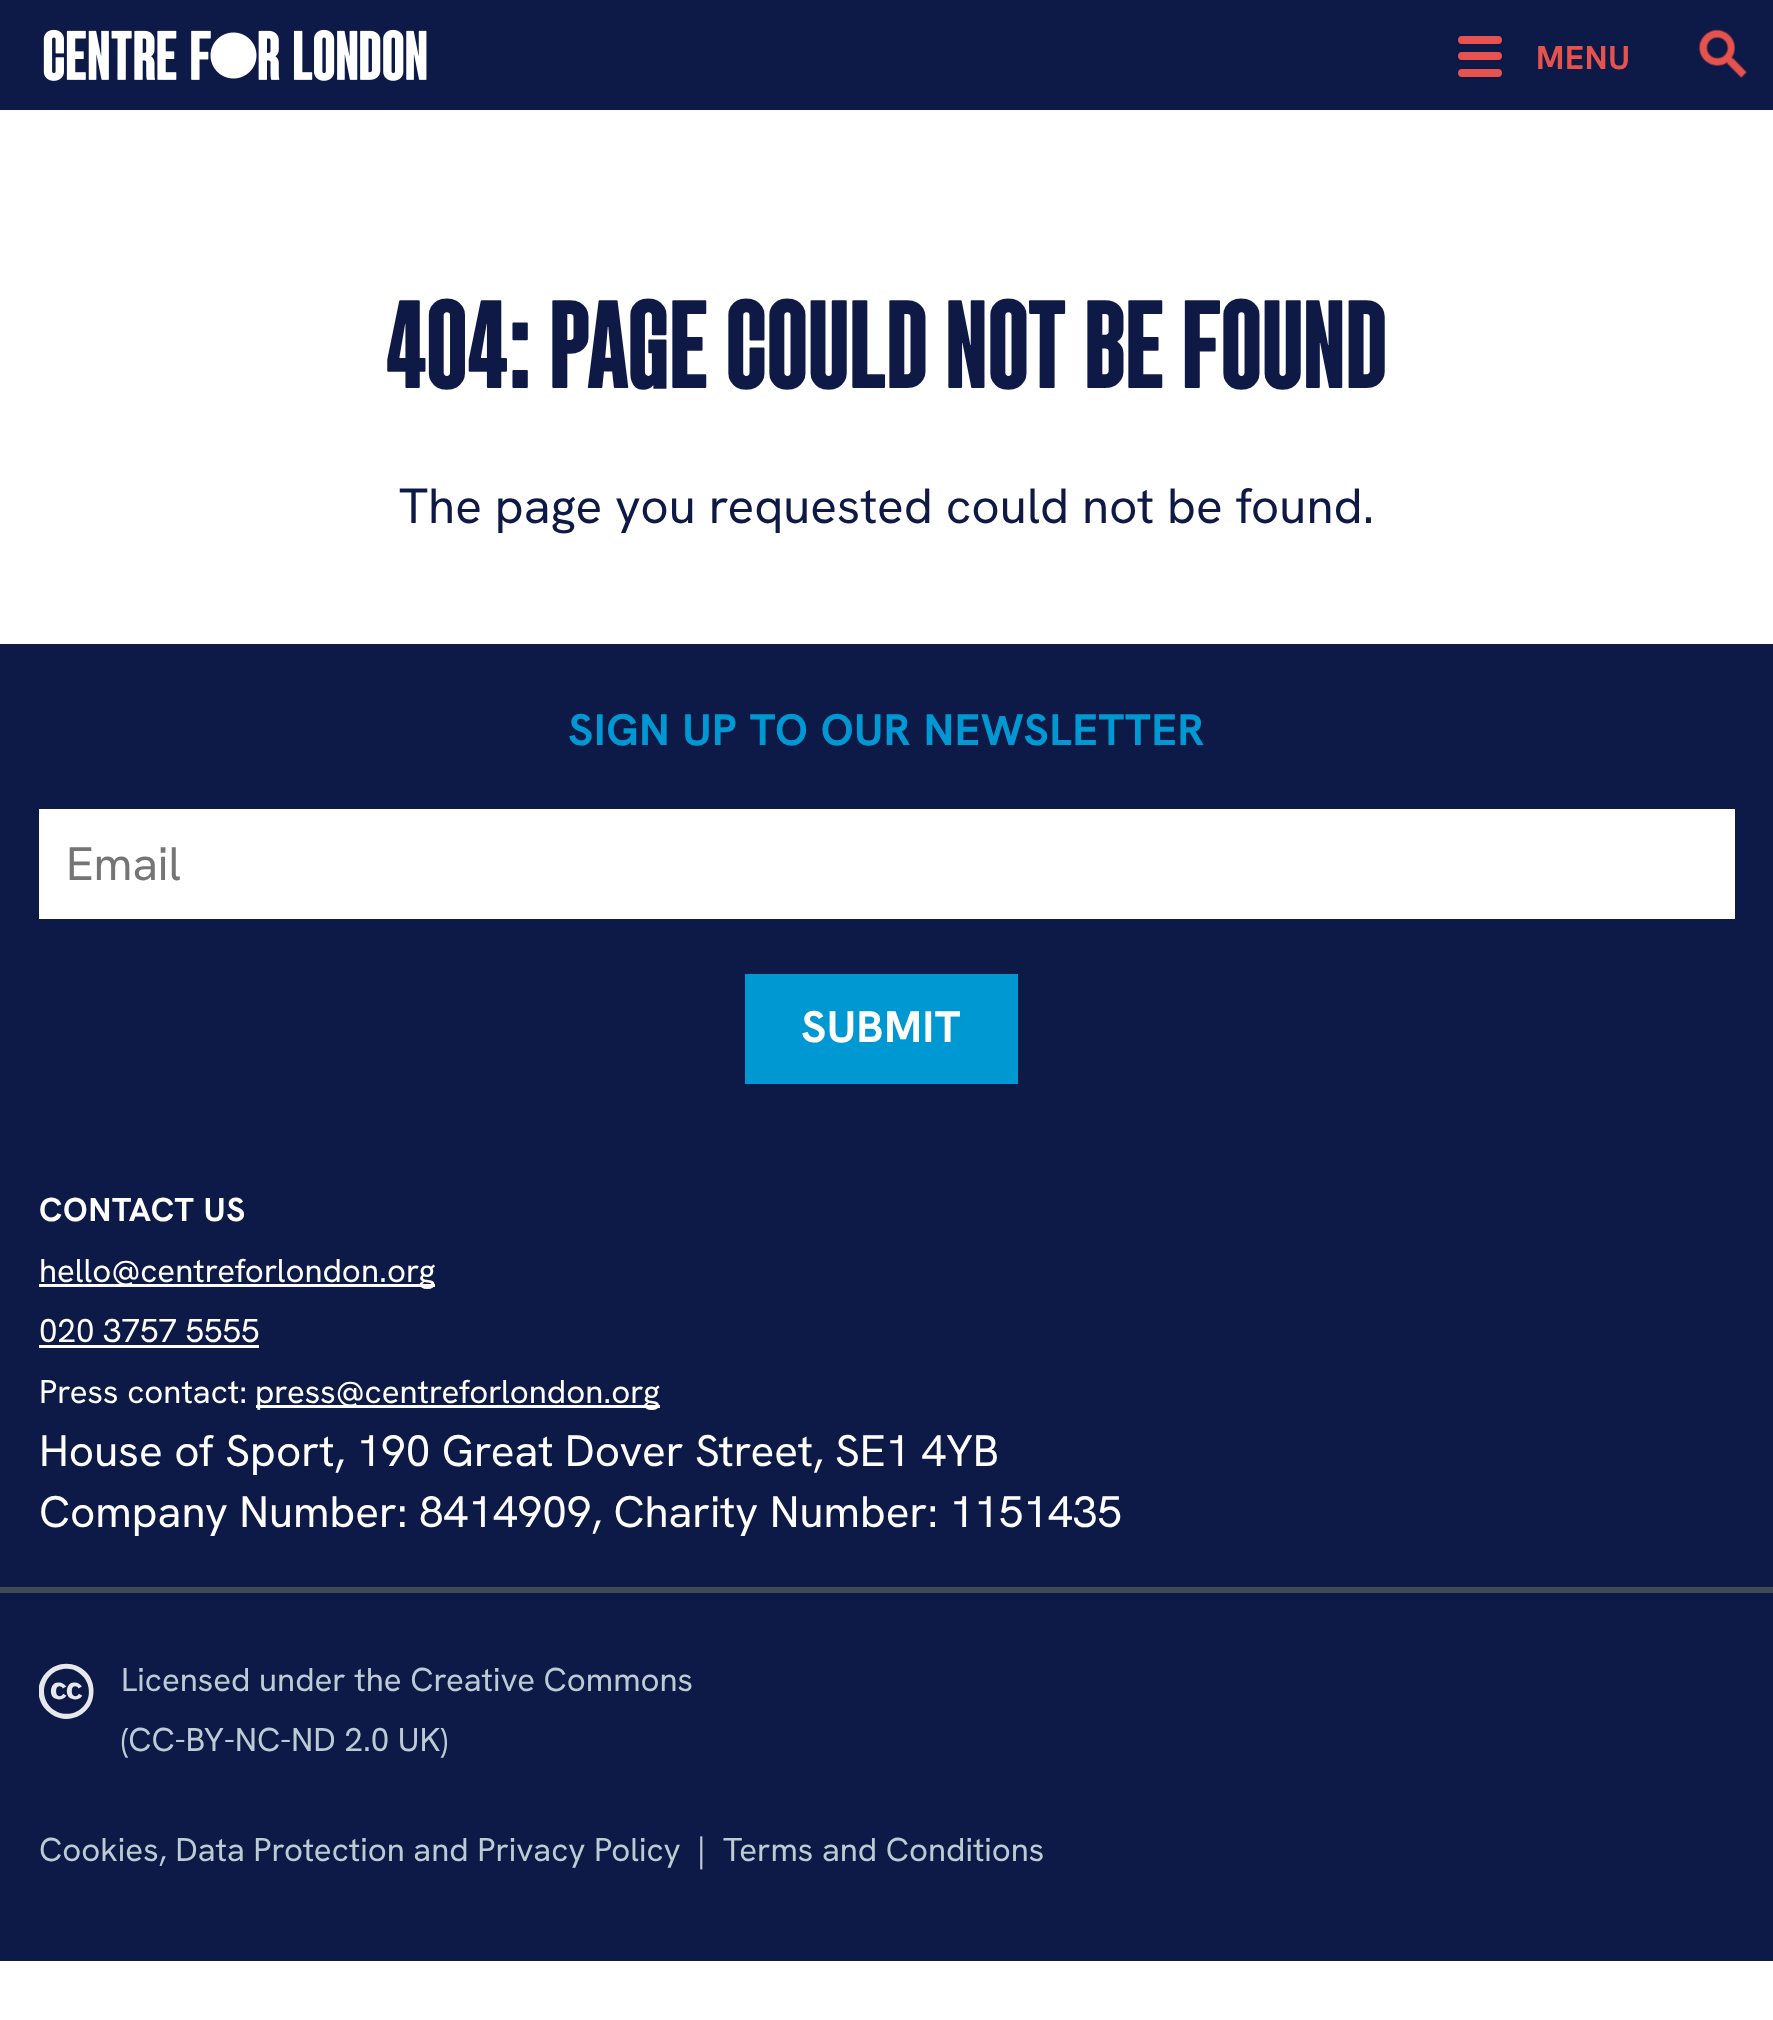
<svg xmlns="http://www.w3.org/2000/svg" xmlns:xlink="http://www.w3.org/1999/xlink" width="1773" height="2020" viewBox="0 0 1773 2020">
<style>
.cls-1{font:bold 33px Hanken Grotesk;letter-spacing:0.7px;fill:#e6534e}
.cls-2{font:bold 123.75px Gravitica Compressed;fill:#0e1946}
.cls-3{font:49.5px Hanken Grotesk;fill:#0e1946}
.cls-4{font:bold 44px Hanken Grotesk;letter-spacing:0.7px;fill:#0098d3}
.cls-5{font:47px Hanken Grotesk;fill:#757575}
.cls-6{font:bold 44px Hanken Grotesk;letter-spacing:0.7px;fill:#ffffff}
.cls-7{font:bold 33px Hanken Grotesk;letter-spacing:0.7px;fill:#ffffff}
.cls-8{font:33px Hanken Grotesk;fill:#ffffff}
.cls-9{font:44px Hanken Grotesk;fill:#ffffff}
.cls-10{font:33px Hanken Grotesk;fill:#bdccd4}
</style>
<rect width="100%" height="100%" fill="#ffffff"/>
<rect fill="#0d1946" x="0" y="0" width="1773" height="110"/>
<image xlink:href="image0.png" x="43" y="29" width="384" height="52"/>
<rect fill="#e6534e" x="1458" y="36" width="44" height="8" rx="4"/>
<rect fill="#e6534e" x="1458" y="52" width="44" height="8" rx="4"/>
<rect fill="#e6534e" x="1458" y="69" width="44" height="8" rx="4"/>
<image xlink:href="image1.png" x="1699" y="29" width="48" height="49"/>
<rect fill="#0d1946" x="0" y="644" width="1773" height="1317"/>
<rect fill="#ffffff" x="39" y="809" width="1696" height="110"/>
<rect fill="#0098d3" x="745" y="974" width="273" height="110"/>
<rect fill="#ffffff" x="39" y="1284" width="396" height="3"/>
<rect fill="#ffffff" x="39" y="1345" width="220" height="3"/>
<rect fill="#ffffff" x="256" y="1405" width="404" height="3"/>
<rect fill="#3d4b53" x="0" y="1587" width="1773" height="6"/>
<image xlink:href="image2.png" x="39" y="1663" width="55" height="56"/>
<text class="cls-1" x="1536" y="69">MENU</text>
<text class="cls-2" x="386" y="388">404: PAGE COULD NOT BE FOUND</text>
<text class="cls-3" x="399" y="523">The page you requested could not be found.</text>
<text class="cls-4" x="568" y="745">SIGN UP TO OUR NEWSLETTER</text>
<text class="cls-5" x="66" y="880">Email</text>
<text class="cls-6" x="801" y="1042">SUBMIT</text>
<text class="cls-7" x="39" y="1221">CONTACT US</text>
<text class="cls-8"><tspan x="39" y="1282">hello@centreforlondon.org</tspan><tspan x="39" y="1342">020 3757 5555</tspan><tspan x="39" y="1403">Press contact:</tspan></text>
<text class="cls-8" x="255" y="1403">press@centreforlondon.org</text>
<text class="cls-9"><tspan x="39" y="1466">House of Sport, 190 Great Dover Street, SE1 4YB</tspan><tspan x="39" y="1527">Company Number: 8414909, Charity Number: 1151435</tspan></text>
<text class="cls-10"><tspan x="121" y="1691">Licensed under the Creative Commons</tspan><tspan x="121" y="1751">(CC-BY-NC-ND 2.0 UK)</tspan></text>
<text class="cls-10" x="39" y="1861">Cookies, Data Protection and Privacy Policy</text>
<text class="cls-10" x="697" y="1861">|</text>
<text class="cls-10" x="723" y="1861">Terms and Conditions</text>
</svg>
